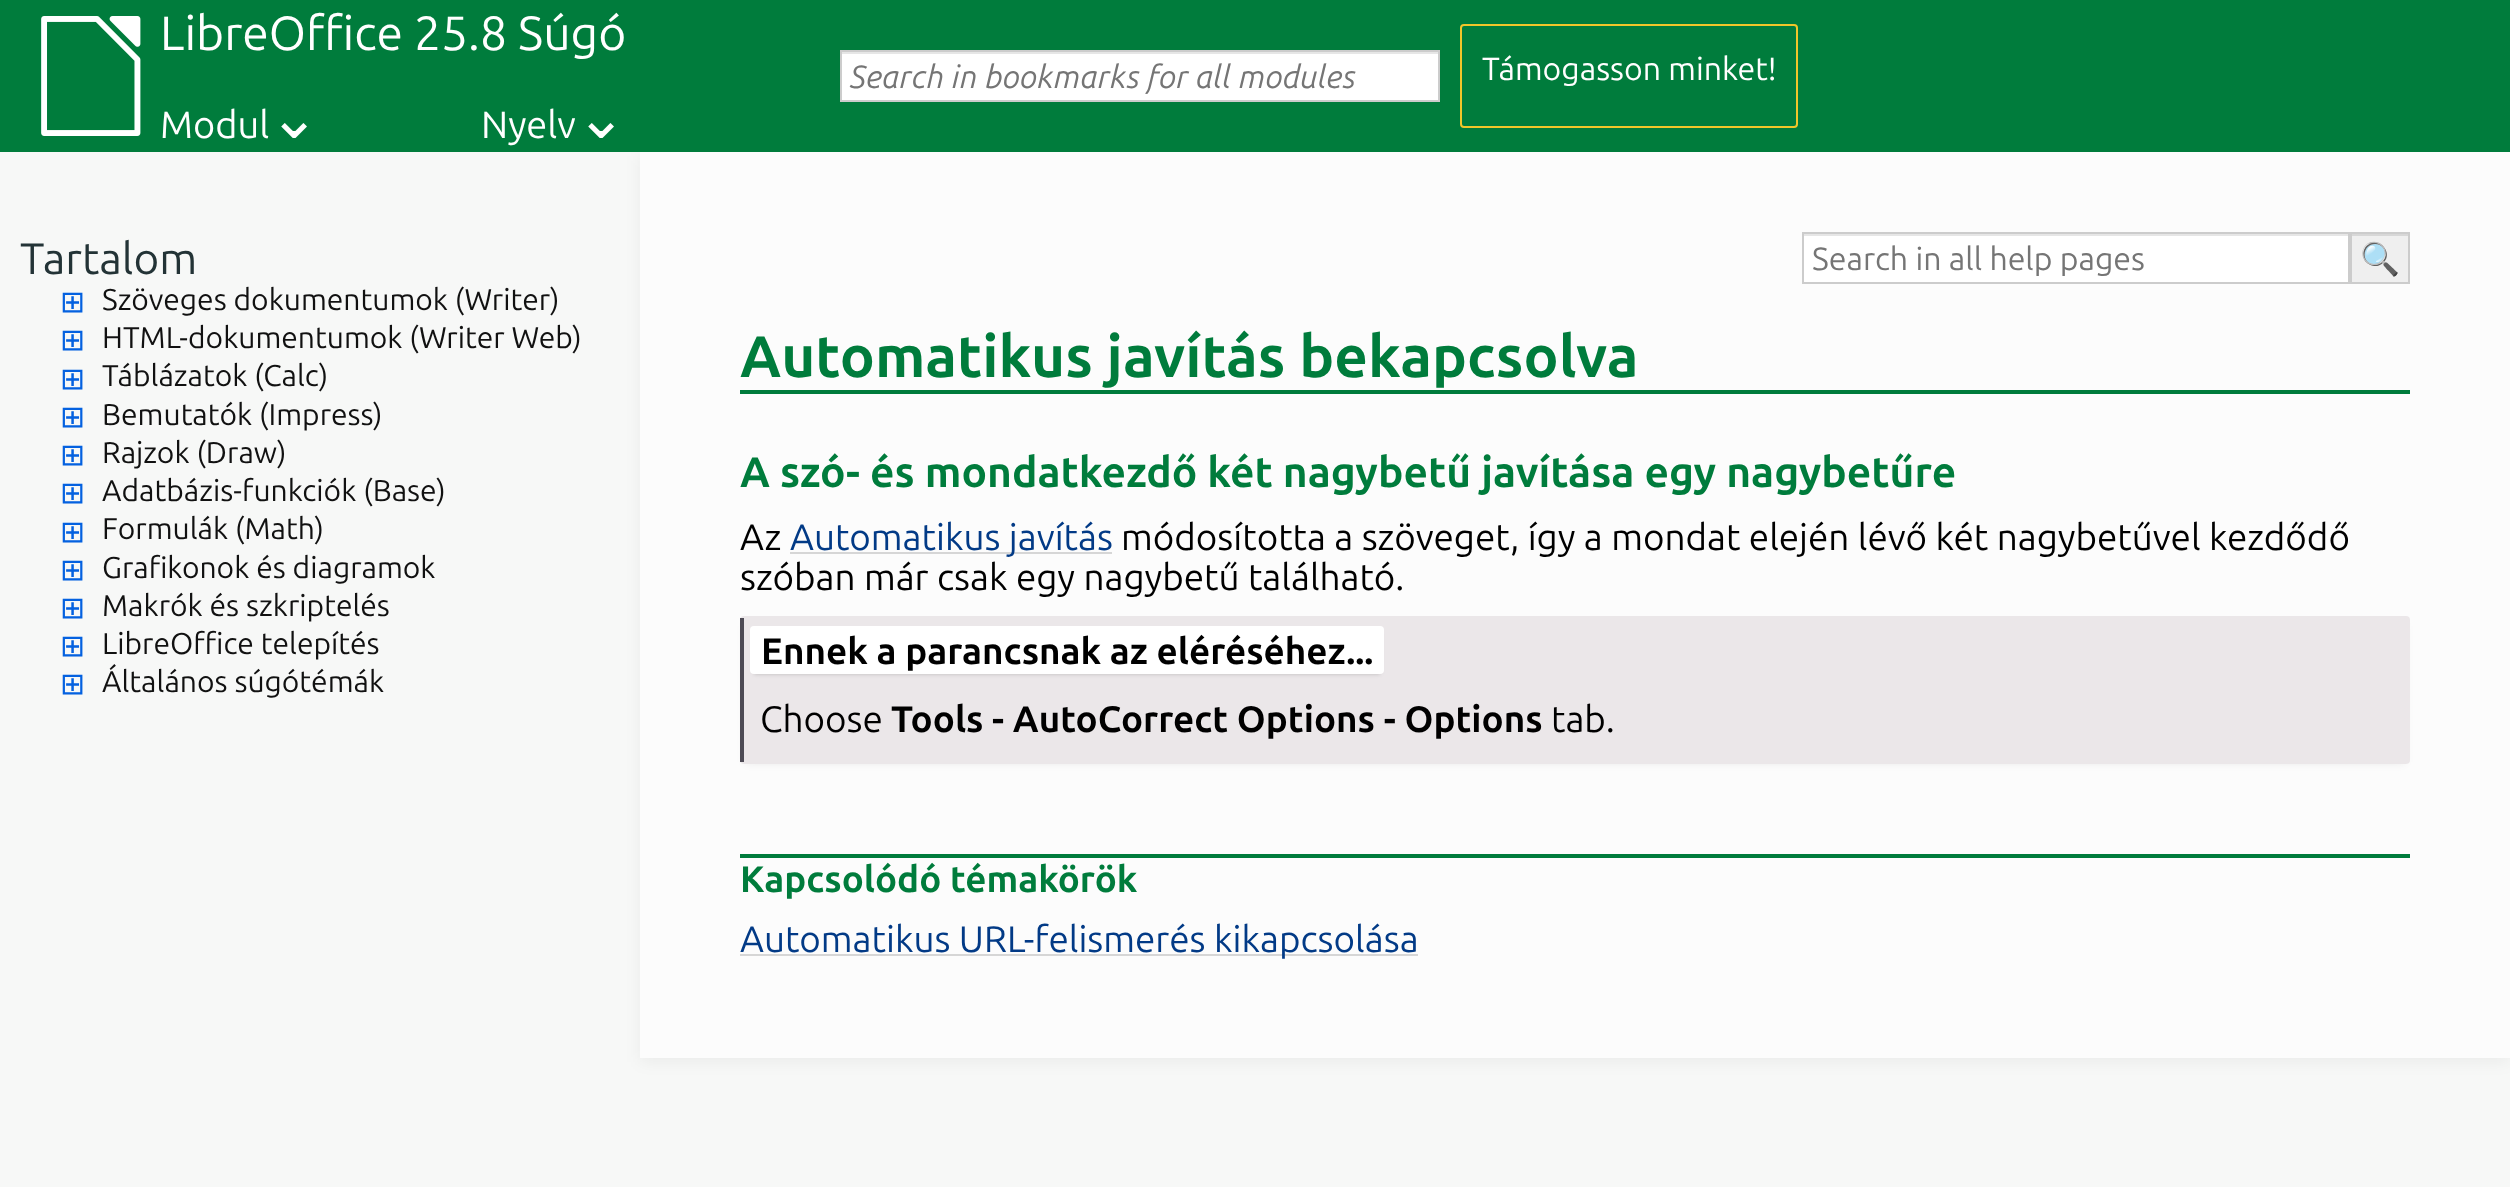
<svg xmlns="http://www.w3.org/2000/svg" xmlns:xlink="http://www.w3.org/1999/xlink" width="2510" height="1187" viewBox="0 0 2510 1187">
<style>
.cls-1{font:48px Ubuntu;fill:#ffffff}
.cls-2{font:38px Ubuntu;fill:#ffffff}
.cls-3{font:60px DejaVu Sans;fill:#ffffff}
.cls-4{font:italic 32px Ubuntu;fill:#757575}
.cls-5{font:32px Ubuntu;fill:#ffffff}
.cls-6{font:44px Ubuntu;fill:#233336}
.cls-7{font:30px DejaVu Sans;fill:#0461e0}
.cls-8{font:30px Ubuntu;fill:#111111}
.cls-9{font:32px Ubuntu;fill:#757575}
.cls-10{font:32px Noto Color Emoji;fill:#000000}
.cls-11{font:bold 58.5px Ubuntu;fill:#007c3c}
.cls-12{font:bold 42.55px Ubuntu;fill:#007c3c}
.cls-13{font:36.8px Ubuntu;fill:#000000}
.cls-14{font:36.8px Ubuntu;fill:#023a86}
.cls-15{font:bold 36.8px Ubuntu;fill:#000000}
.cls-16{font:bold 36.8px Ubuntu;fill:#007c3c}
</style>
<rect width="100%" height="100%" fill="#f7f8f7"/>
<rect fill="#000000" fill-opacity="0.05" filter="blur(8px)" x="640" y="156" width="1870" height="906"/>
<rect fill="#007c3c" x="0" y="0" width="2510" height="152"/>
<image xlink:href="image0.png" x="41" y="16" width="100" height="120"/>
<rect fill="#ffffff" x="842" y="54" width="596" height="46"/>
<rect fill="#e6e6e6" x="842" y="52" width="596" height="2"/>
<rect fill="none" stroke="#cccccc" stroke-width="2" x="841" y="51" width="598" height="50"/>
<rect fill="none" stroke="#f1c62a" stroke-width="2" x="1461" y="25" width="336" height="102" rx="3"/>
<rect fill="#fcfcfc" x="640" y="152" width="1870" height="906"/>
<rect fill="#ffffff" x="1804" y="236" width="544" height="46"/>
<rect fill="#e6e6e6" x="1804" y="234" width="544" height="2"/>
<rect fill="none" stroke="#cccccc" stroke-width="2" x="1803" y="233" width="546" height="50"/>
<rect fill="#efefef" x="2352" y="236" width="56" height="46"/>
<rect fill="#d7d7d7" x="2352" y="234" width="56" height="2"/>
<rect fill="none" stroke="#cccccc" stroke-width="2" x="2351" y="233" width="58" height="50"/>
<rect fill="#007c3c" x="740" y="390" width="1670" height="4"/>
<rect fill="#d6d6d6" x="790" y="552" width="322" height="2"/>
<rect fill="#000000" fill-opacity="0.1" filter="blur(5px)" x="746" y="626" width="1658" height="136"/>
<rect fill="#ebe7e9" x="740" y="616" width="1670" height="148" rx="4"/>
<rect fill="#4e4b55" x="740" y="618" width="4" height="144"/>
<rect fill="#000000" fill-opacity="0.2" filter="blur(2px)" x="754" y="634" width="626" height="40"/>
<rect fill="#ffffff" x="750" y="626" width="634" height="48" rx="4"/>
<rect fill="#007c3c" x="740" y="854" width="1670" height="4"/>
<rect fill="#d6d6d6" x="740" y="954" width="678" height="2"/>
<text class="cls-1" x="160" y="50">LibreOffice 25.8 Súgó</text>
<text class="cls-2" x="160" y="138">Modul</text>
<text class="cls-3" x="269" y="138">⌄</text>
<text class="cls-2" x="481" y="138">Nyelv</text>
<text class="cls-3" x="576" y="138">⌄</text>
<text class="cls-4" x="850" y="88">Search in bookmarks for all modules</text>
<text class="cls-5" x="1482" y="80">Támogasson minket!</text>
<text class="cls-6" x="20" y="274">Tartalom</text>
<text class="cls-7" x="60" y="312">⊞</text>
<text class="cls-8" x="102" y="310">Szöveges dokumentumok (Writer)</text>
<text class="cls-7" x="60" y="350">⊞</text>
<text class="cls-8" x="102" y="348">HTML-dokumentumok (Writer Web)</text>
<text class="cls-7" x="60" y="389">⊞</text>
<text class="cls-8" x="102" y="386">Táblázatok (Calc)</text>
<text class="cls-7" x="60" y="427">⊞</text>
<text class="cls-8" x="102" y="425">Bemutatók (Impress)</text>
<text class="cls-7" x="60" y="465">⊞</text>
<text class="cls-8" x="102" y="463">Rajzok (Draw)</text>
<text class="cls-7" x="60" y="503">⊞</text>
<text class="cls-8" x="102" y="501">Adatbázis-funkciók (Base)</text>
<text class="cls-7" x="60" y="542">⊞</text>
<text class="cls-8" x="102" y="539">Formulák (Math)</text>
<text class="cls-7" x="60" y="580">⊞</text>
<text class="cls-8" x="102" y="578">Grafikonok és diagramok</text>
<text class="cls-7" x="60" y="618">⊞</text>
<text class="cls-8" x="102" y="616">Makrók és szkriptelés</text>
<text class="cls-7" x="60" y="656">⊞</text>
<text class="cls-8" x="102" y="654">LibreOffice telepítés</text>
<text class="cls-7" x="60" y="694">⊞</text>
<text class="cls-8" x="102" y="692">Általános súgótémák</text>
<text class="cls-9" x="1812" y="270">Search in all help pages</text>
<text class="cls-10" x="2360" y="270">🔍</text>
<text class="cls-11" x="740" y="377">Automatikus javítás bekapcsolva</text>
<text class="cls-12" x="740" y="487">A szó- és mondatkezdő két nagybetű javítása egy nagybetűre</text>
<text class="cls-13" x="740" y="550">Az</text>
<text class="cls-14" x="790" y="550">Automatikus javítás</text>
<text class="cls-13" x="1121" y="550">módosította a szöveget, így a mondat elején lévő két nagybetűvel kezdődő</text>
<text class="cls-13" x="740" y="590">szóban már csak egy nagybetű található.</text>
<text class="cls-15" x="761" y="664">Ennek a parancsnak az eléréséhez...</text>
<text class="cls-13" x="760" y="732">Choose</text>
<text class="cls-15" x="891" y="732">Tools - AutoCorrect Options - Options</text>
<text class="cls-13" x="1551" y="732">tab.</text>
<text class="cls-16" x="740" y="892">Kapcsolódó témakörök</text>
<text class="cls-14" x="740" y="952">Automatikus URL-felismerés kikapcsolása</text>
</svg>
